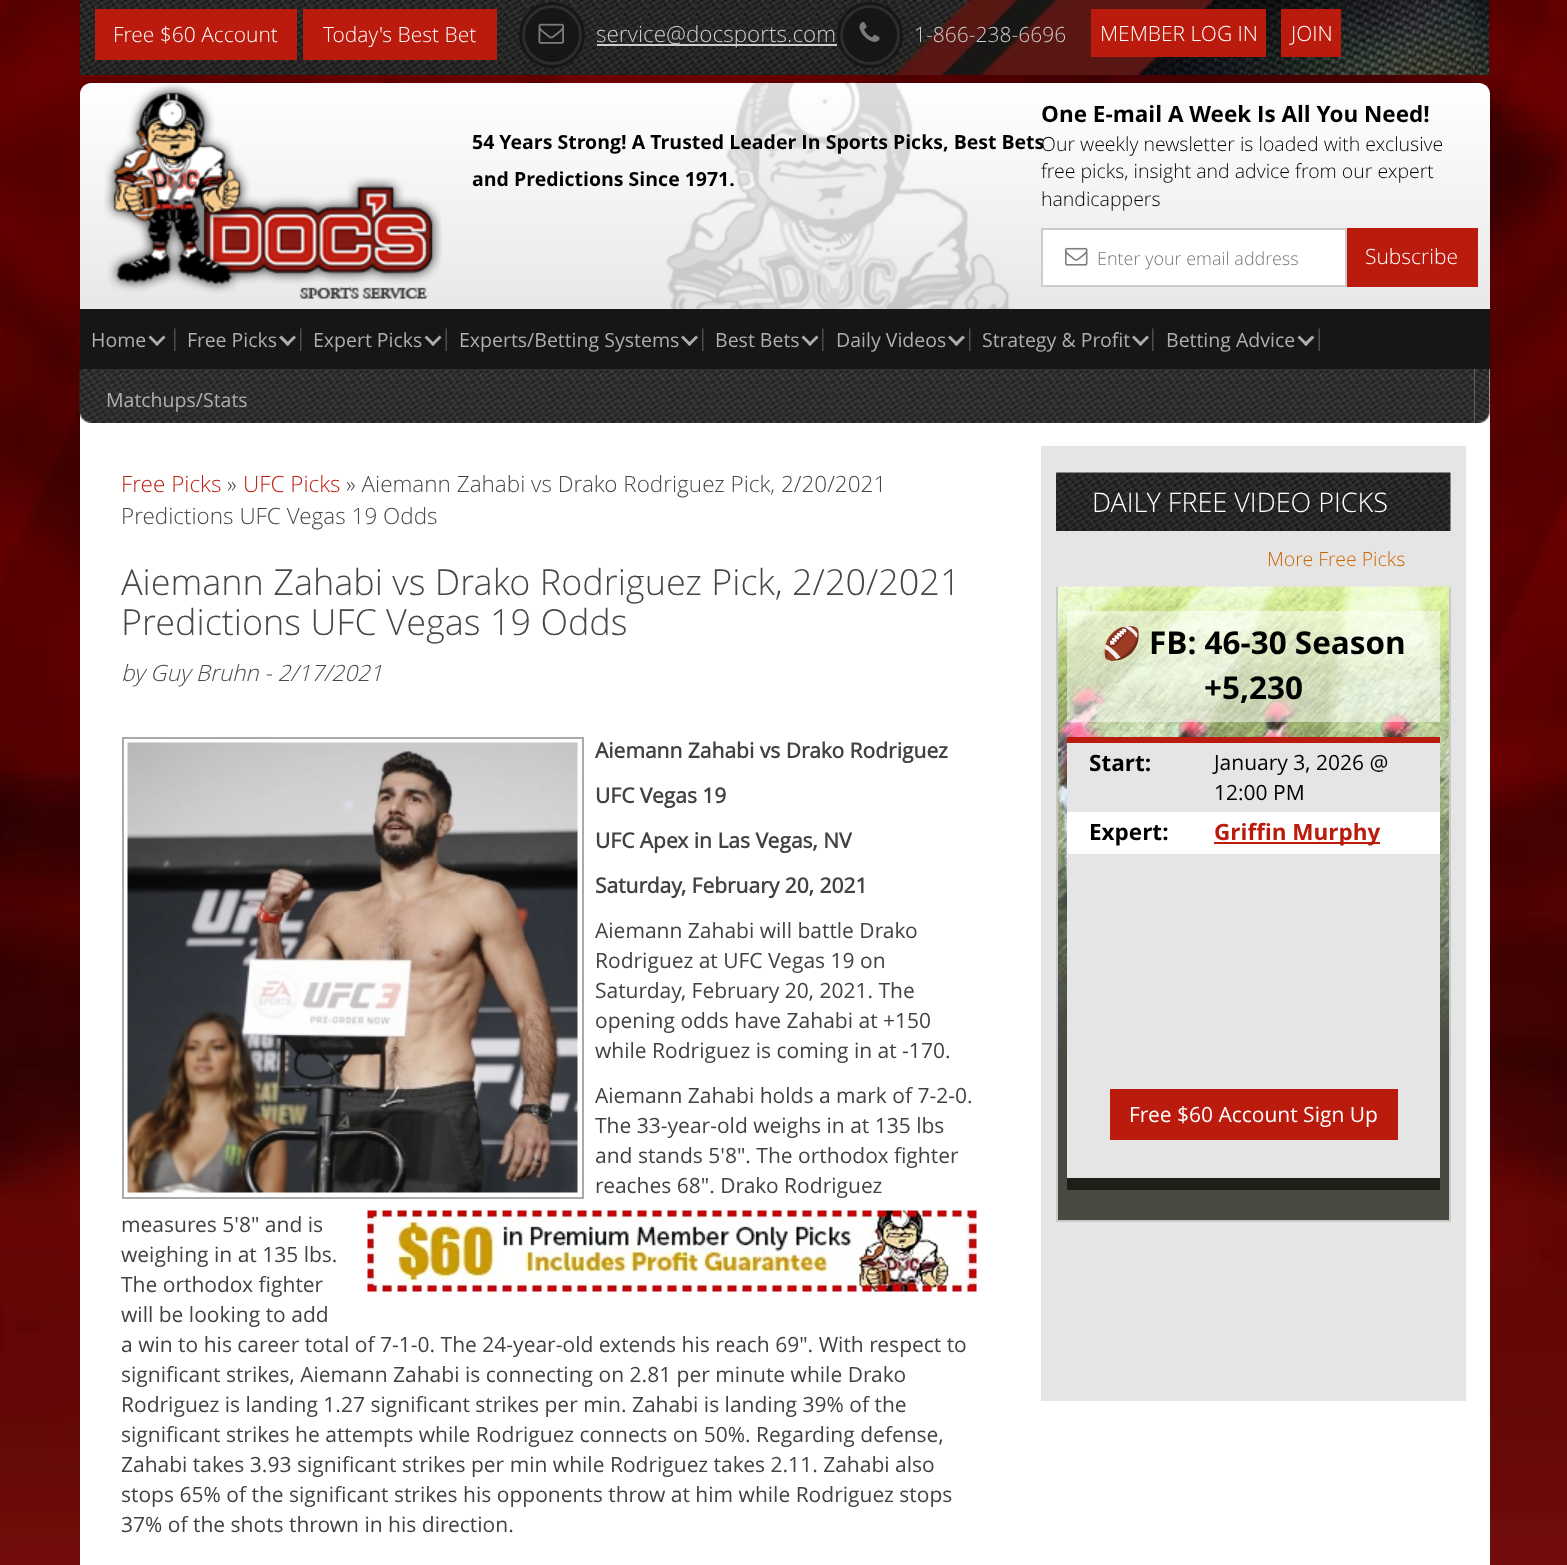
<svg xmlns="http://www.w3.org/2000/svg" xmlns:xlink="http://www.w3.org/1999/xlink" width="1567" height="1565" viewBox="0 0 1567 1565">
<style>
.cls-1{font:300 21px Open Sans;fill:#ffffff}
.cls-2{font:300 22.5px Open Sans;fill:#cccccc}
.cls-3{font:300 21px Open Sans;fill:#cccccc}
.cls-4{font:bold 19.5px Open Sans;fill:#000000}
.cls-5{font:bold 22.5px Open Sans;fill:#000000}
.cls-6{font:300 19.5px Open Sans;fill:#000000}
.cls-7{font:300 18px Open Sans;fill:#777777}
.cls-8{font:19.5px Open Sans;fill:#aeaeae}
.cls-9{font:300 22.5px Open Sans;fill:#c02115}
.cls-10{font:300 22.5px Open Sans;fill:#474749}
.cls-11{font:300 36px Open Sans;fill:#474749}
.cls-12{font:italic 300 22.5px Open Sans;fill:#474749}
.cls-13{font:bold 21px 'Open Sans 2';fill:#434242}
.cls-14{font:21px Open Sans;fill:#434242}
.cls-15{font:300 27px Open Sans;fill:#ffffff}
.cls-16{font:300 19.5px Open Sans;fill:#cc6600}
.cls-17{font:31.5px Noto Color Emoji;fill:#000000}
.cls-18{font:bold 31.5px Open Sans;fill:#000000}
.cls-19{font:21px Open Sans;fill:#000000}
.cls-20{font:bold 22.5px Open Sans;fill:#bb1b0d}
.cls-21{font:21px Open Sans;fill:#ffffff}
</style>
<defs>
<linearGradient id="g1" gradientUnits="userSpaceOnUse" x1="785" y1="82" x2="785" y2="309"><stop offset="0" stop-color="#ffffff"/><stop offset="1" stop-color="#e8e8e8"/></linearGradient>
</defs>
<rect width="100%" height="100%" fill="#ffffff"/>
<image xlink:href="image0.png" x="0" y="0" width="1567" height="1565"/>
<image xlink:href="image1.png" x="79" y="0" width="16" height="75"/>
<image xlink:href="image2.png" x="1474" y="0" width="16" height="75"/>
<image xlink:href="image3.png" x="94" y="0" width="1381" height="75"/>
<rect fill="#bb1b0d" x="95" y="9" width="202" height="51"/>
<rect fill="#bb1b0d" x="303" y="9" width="194" height="51"/>
<image xlink:href="image4.png" x="874" y="0" width="601" height="75"/>
<circle fill="#161616" cx="552" cy="35" r="33"/>
<circle fill="none" stroke="#2d2d2d" stroke-width="3" cx="552" cy="35" r="28.5"/>
<image xlink:href="image5.png" x="538" y="23" width="26" height="21"/>
<rect fill="#cccccc" x="597" y="44" width="240" height="2"/>
<circle fill="#161616" cx="870" cy="35" r="33"/>
<circle fill="none" stroke="#2d2d2d" stroke-width="3" cx="870" cy="35" r="28.5"/>
<image xlink:href="image6.png" x="859" y="22" width="21" height="20"/>
<rect fill="#bb1b0d" x="1091" y="9" width="175" height="48"/>
<rect fill="#bb1b0d" x="1281" y="9" width="60" height="48"/>
<path fill="url(#g1)" d="M91 83H1479C1485 83 1490 88 1490 94V309H80V94C80 88 85 83 91 83Z"/>
<image xlink:href="image7.png" x="666" y="82" width="344" height="227"/>
<image xlink:href="image8.png" x="104" y="83" width="338" height="216"/>
<rect fill="#ffffff" stroke="#cccccc" stroke-width="2" x="1042" y="229" width="304" height="57"/>
<image xlink:href="image9.png" x="1065" y="247" width="23" height="19"/>
<rect fill="#bb1b0d" x="1347" y="228" width="131" height="59"/>
<rect fill="#161616" x="80" y="309" width="1410" height="60"/>
<image xlink:href="image10.png" x="174" y="328" width="2" height="23"/>
<path fill="#aeaeae" d="M163.5 335.5L165.5 337.5L157 346L155 344Z"/>
<path fill="#aeaeae" d="M150.5 335.5L159 344L157 346L148.5 337.5Z"/>
<image xlink:href="image10.png" x="300" y="328" width="2" height="23"/>
<path fill="#aeaeae" d="M294 335.5L296 337.5L287.5 346L285.5 344Z"/>
<path fill="#aeaeae" d="M281.5 335.5L290 344L287.5 346L279 337.5Z"/>
<image xlink:href="image11.png" x="445" y="328" width="2" height="23"/>
<path fill="#aeaeae" d="M439.5 335.5L441.5 337.5L433 346L431 344Z"/>
<path fill="#aeaeae" d="M426.5 335.5L435 344L433 346L424.5 337.5Z"/>
<image xlink:href="image10.png" x="702" y="328" width="2" height="23"/>
<path fill="#aeaeae" d="M696 335.5L698 337.5L689.5 346L687.5 344Z"/>
<path fill="#aeaeae" d="M683 335.5L691.5 344L689.5 346L681 337.5Z"/>
<image xlink:href="image10.png" x="822" y="328" width="2" height="23"/>
<path fill="#aeaeae" d="M816.5 335.5L818.5 337.5L810 346L808 344Z"/>
<path fill="#aeaeae" d="M803.5 335.5L812 344L810 346L801.5 337.5Z"/>
<image xlink:href="image10.png" x="969" y="328" width="2" height="23"/>
<path fill="#aeaeae" d="M962.5 335.5L965 337.5L956.5 346L954 344Z"/>
<path fill="#aeaeae" d="M950 335.5L958.5 344L956.5 346L948 337.5Z"/>
<image xlink:href="image10.png" x="1152" y="328" width="2" height="23"/>
<path fill="#aeaeae" d="M1147 335.5L1149 337.5L1140.5 346L1138.5 344Z"/>
<path fill="#aeaeae" d="M1134 335.5L1142.5 344L1140.5 346L1132 337.5Z"/>
<image xlink:href="image11.png" x="1318" y="328" width="2" height="23"/>
<path fill="#aeaeae" d="M1312 335.5L1314.5 337.5L1306 346L1303.5 344Z"/>
<path fill="#aeaeae" d="M1299.5 335.5L1308 344L1306 346L1297.5 337.5Z"/>
<rect fill="#ffffff" x="80" y="369" width="1410" height="1196"/>
<image xlink:href="image12.png" x="79" y="369" width="16" height="54"/>
<image xlink:href="image13.png" x="1474" y="369" width="16" height="54"/>
<image xlink:href="image14.png" x="94" y="369" width="1381" height="54"/>
<rect fill="none" stroke="#aaaaaa" stroke-width="2" x="123" y="738" width="460" height="460"/>
<image xlink:href="image15.png" x="127" y="742" width="451" height="451"/>
<image xlink:href="image16.png" x="367" y="1210" width="610" height="82"/>
<rect fill="#e5e5e5" x="1041" y="446" width="425" height="955"/>
<image xlink:href="image17.png" x="1056" y="472" width="395" height="59"/>
<rect fill="#474a41" x="1058" y="1052" width="391" height="168"/>
<image xlink:href="image18.png" x="1056" y="586" width="395" height="466"/>
<rect fill="#c9c9c9" x="1449" y="587" width="2" height="634"/>
<rect fill="#c9c9c9" x="1056" y="1220" width="395" height="2"/>
<rect fill="#c9c9c9" x="1056" y="587" width="2" height="634"/>
<rect fill="#ffffff" fill-opacity="0.5" x="1067" y="611" width="373" height="111"/>
<rect fill="#ffffff" x="1067" y="812" width="373" height="42"/>
<rect fill="#bb1b0d" x="1067" y="737" width="373" height="6"/>
<rect fill="#1e1f19" x="1067" y="1178" width="373" height="12"/>
<rect fill="#e5e5e5" x="1067" y="743" width="373" height="69"/>
<rect fill="#bb1b0d" x="1214" y="842" width="166" height="2"/>
<rect fill="#e5e5e5" x="1067" y="854" width="373" height="324"/>
<rect fill="#bb1b0d" x="1110" y="1089" width="288" height="51"/>
<text class="cls-1" x="113" y="42">Free $60 Account</text>
<text class="cls-1" x="323" y="42">Today's Best Bet</text>
<text class="cls-2" x="596" y="42">service@docsports.com</text>
<text class="cls-3" x="914" y="42">1-866-238-6696</text>
<text class="cls-1" x="1100" y="41">MEMBER LOG IN</text>
<text class="cls-1" x="1291" y="41">JOIN</text>
<text class="cls-4"><tspan x="472" y="149">54 Years Strong! A Trusted Leader In Sports Picks, Best Bets</tspan><tspan x="472" y="186">and Predictions Since 1971.</tspan></text>
<text class="cls-5" x="1041" y="122">One E-mail A Week Is All You Need!</text>
<text class="cls-6"><tspan x="1041" y="151">Our weekly newsletter is loaded with exclusive</tspan><tspan x="1041" y="178">free picks, insight and advice from our expert</tspan><tspan x="1041" y="206">handicappers</tspan></text>
<text class="cls-7" x="1097" y="265">Enter your email address</text>
<text class="cls-1" x="1365" y="264">Subscribe</text>
<text class="cls-8" x="91" y="347">Home</text>
<text class="cls-8" x="187" y="347">Free Picks</text>
<text class="cls-8" x="313" y="347">Expert Picks</text>
<text class="cls-8" x="459" y="347">Experts/Betting Systems</text>
<text class="cls-8" x="715" y="347">Best Bets</text>
<text class="cls-8" x="836" y="347">Daily Videos</text>
<text class="cls-8" x="982" y="347">Strategy &amp; Profit</text>
<text class="cls-8" x="1166" y="347">Betting Advice</text>
<text class="cls-8" x="106" y="407">Matchups/Stats</text>
<text class="cls-9" x="121" y="492">Free Picks</text>
<text class="cls-10" x="227" y="492">»</text>
<text class="cls-9" x="243" y="492">UFC Picks</text>
<text class="cls-10" x="346" y="492">» Aiemann Zahabi vs Drako Rodriguez Pick, 2/20/2021</text>
<text class="cls-10" x="121" y="524">Predictions UFC Vegas 19 Odds</text>
<text class="cls-11"><tspan x="121" y="595">Aiemann Zahabi vs Drako Rodriguez Pick, 2/20/2021</tspan><tspan x="121" y="635">Predictions UFC Vegas 19 Odds</tspan></text>
<text class="cls-12" x="121" y="681">by Guy Bruhn - 2/17/2021</text>
<text class="cls-13" x="595" y="758">Aiemann Zahabi vs Drako Rodriguez</text>
<text class="cls-13" x="595" y="803">UFC Vegas 19</text>
<text class="cls-13" x="595" y="848">UFC Apex in Las Vegas, NV</text>
<text class="cls-13" x="595" y="893">Saturday, February 20, 2021</text>
<text class="cls-14"><tspan x="595" y="938">Aiemann Zahabi will battle Drako</tspan><tspan x="595" y="968">Rodriguez at UFC Vegas 19 on</tspan><tspan x="595" y="998">Saturday, February 20, 2021. The</tspan><tspan x="595" y="1028">opening odds have Zahabi at +150</tspan><tspan x="595" y="1058">while Rodriguez is coming in at -170.</tspan></text>
<text class="cls-14"><tspan x="595" y="1103">Aiemann Zahabi holds a mark of 7-2-0.</tspan><tspan x="595" y="1133">The 33-year-old weighs in at 135 lbs</tspan><tspan x="595" y="1163">and stands 5'8". The orthodox fighter</tspan><tspan x="595" y="1193">reaches 68". Drako Rodriguez</tspan></text>
<text class="cls-14"><tspan x="121" y="1232">measures 5'8" and is</tspan><tspan x="121" y="1262">weighing in at 135 lbs.</tspan><tspan x="121" y="1292">The orthodox fighter</tspan><tspan x="121" y="1322">will be looking to add</tspan><tspan x="121" y="1352">a win to his career total of 7-1-0. The 24-year-old extends his reach 69". With respect to</tspan><tspan x="121" y="1382">significant strikes, Aiemann Zahabi is connecting on 2.81 per minute while Drako</tspan><tspan x="121" y="1412">Rodriguez is landing 1.27 significant strikes per min. Zahabi is landing 39% of the</tspan><tspan x="121" y="1442">significant strikes he attempts while Rodriguez connects on 50%. Regarding defense,</tspan><tspan x="121" y="1472">Zahabi takes 3.93 significant strikes per min while Rodriguez takes 2.11. Zahabi also</tspan><tspan x="121" y="1502">stops 65% of the significant strikes his opponents throw at him while Rodriguez stops</tspan><tspan x="121" y="1532">37% of the shots thrown in his direction.</tspan></text>
<text class="cls-15" x="1092" y="512">DAILY FREE VIDEO PICKS</text>
<text class="cls-16" x="1267" y="566">More Free Picks</text>
<text class="cls-17" x="1102" y="654">🏈</text>
<text class="cls-18" x="1149" y="654">FB: 46-30 Season</text>
<text class="cls-18" x="1204" y="699">+5,230</text>
<text class="cls-5" x="1089" y="771">Start:</text>
<text class="cls-19"><tspan x="1214" y="770">January 3, 2026 @</tspan><tspan x="1214" y="800">12:00 PM</tspan></text>
<text class="cls-5" x="1089" y="840">Expert:</text>
<text class="cls-20" x="1214" y="840">Griffin Murphy</text>
<text class="cls-21" x="1129" y="1122">Free $60 Account Sign Up</text>
</svg>
